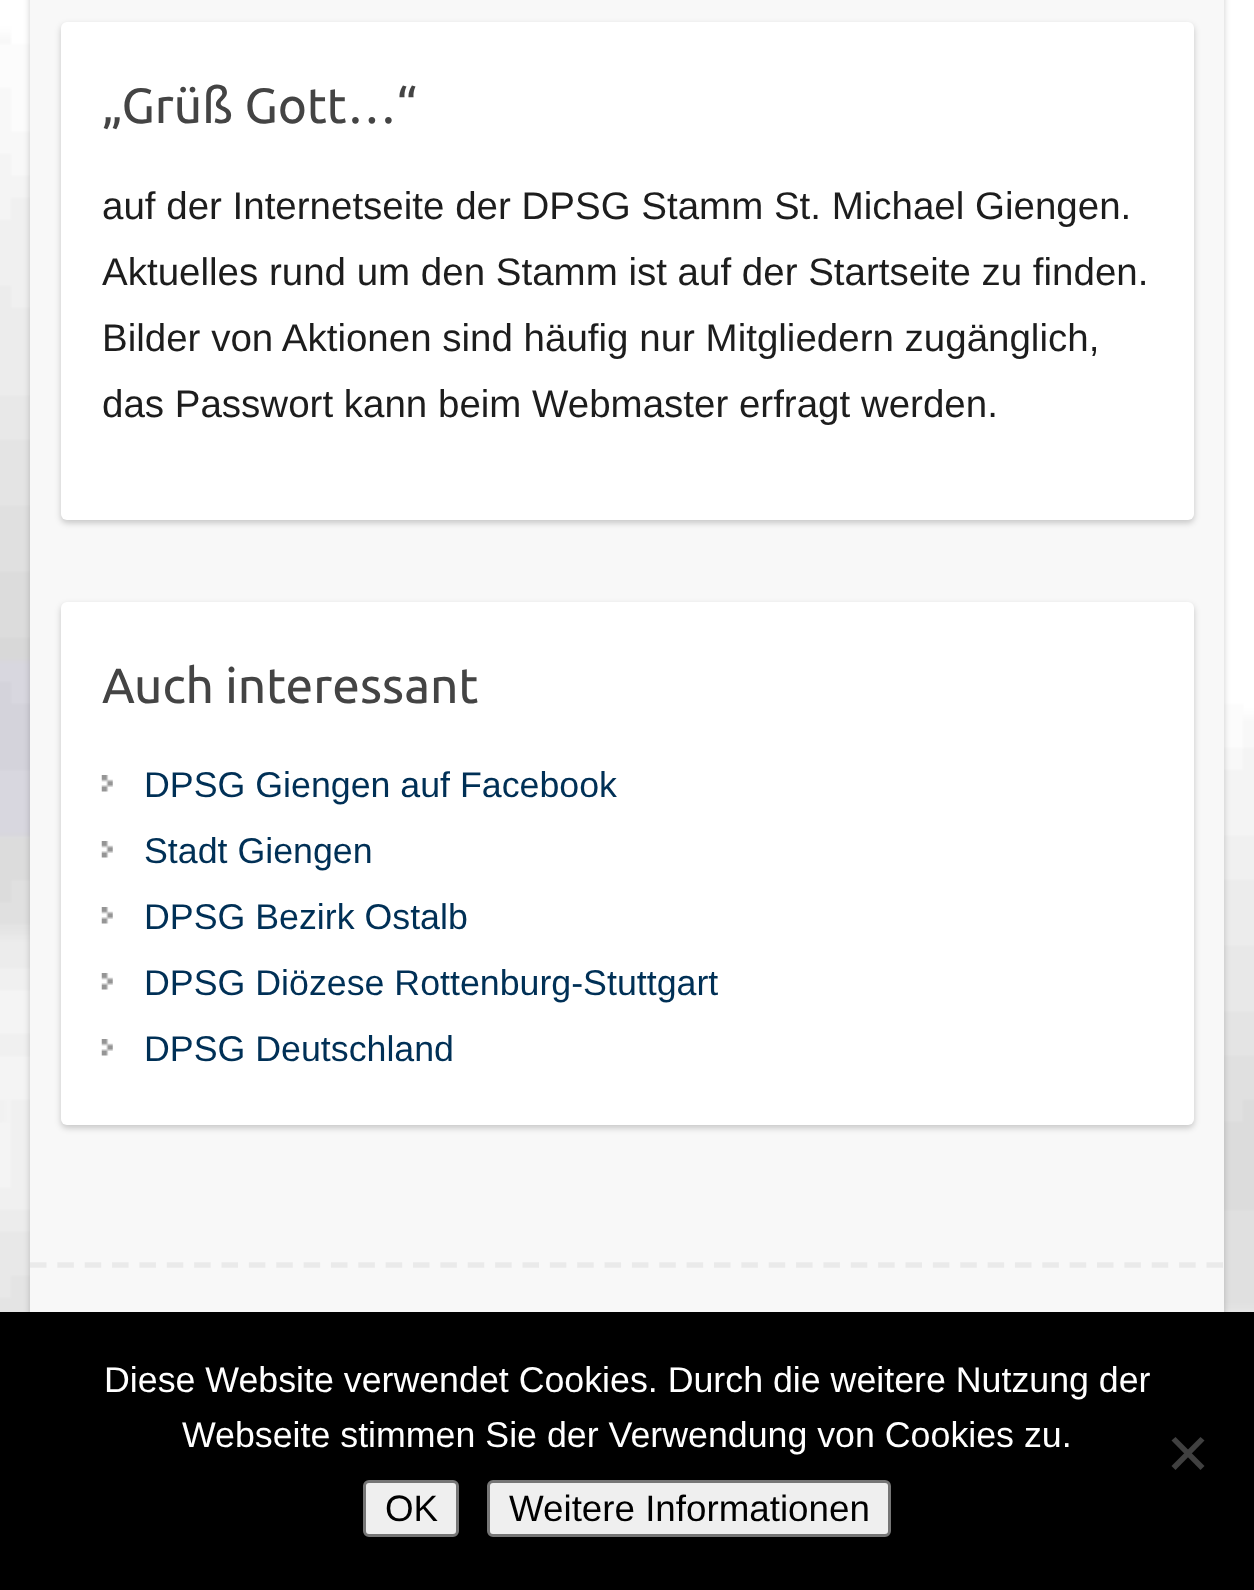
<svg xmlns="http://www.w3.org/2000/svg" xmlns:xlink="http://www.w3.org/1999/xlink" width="1254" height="1590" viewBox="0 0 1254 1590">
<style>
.cls-1{font:49.5px Ubuntu;fill:#444444}
.cls-2{font:38.5px Liberation Sans;fill:#1d1d1d}
.cls-3{font:35.75px Liberation Sans;fill:#003056}
.cls-4{font:35.75px Liberation Sans;fill:#ffffff}
.cls-5{font:36.75px Liberation Sans;fill:#000000}
</style>
<rect width="100%" height="100%" fill="#ffffff"/>
<image xlink:href="image0.png" x="0" y="0" width="1254" height="1312"/>
<rect fill="#000000" fill-opacity="0.2" filter="blur(3px)" x="30" y="-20" width="1194" height="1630" rx="11"/>
<rect fill="#f8f8f8" x="30" y="0" width="1194" height="1312"/>
<rect fill="#000000" fill-opacity="0.2" filter="blur(3px)" x="61" y="25" width="1133" height="498" rx="6"/>
<rect fill="#ffffff" x="61" y="22" width="1133" height="498" rx="6"/>
<rect fill="#000000" fill-opacity="0.2" filter="blur(3px)" x="61" y="605" width="1133" height="523" rx="6"/>
<rect fill="#ffffff" x="61" y="602" width="1133" height="523" rx="6"/>
<image xlink:href="image1.png" x="101" y="775" width="12" height="17"/>
<image xlink:href="image1.png" x="101" y="841" width="12" height="17"/>
<image xlink:href="image1.png" x="101" y="907" width="12" height="17"/>
<image xlink:href="image1.png" x="101" y="973" width="12" height="17"/>
<image xlink:href="image1.png" x="101" y="1039" width="12" height="17"/>
<path fill="none" stroke="#eaeaea" stroke-width="5.5" stroke-dasharray="16.5 10.86" d="M30 1265H1224"/>
<rect fill="#000000" x="0" y="1312" width="1254" height="278"/>
<path fill="#404040" d="M1200.5 1437L1204.5 1440.5L1175.5 1470L1171.5 1466Z"/>
<path fill="#404040" d="M1171.5 1440.5L1175.5 1437L1204.5 1466L1200.5 1470Z"/>
<rect fill="#efefef" stroke="#767676" stroke-width="3" x="364.5" y="1481.5" width="93" height="54" rx="4.5"/>
<rect fill="#efefef" stroke="#767676" stroke-width="3" x="488.5" y="1481.5" width="401" height="54" rx="4.5"/>
<text class="cls-1" x="102" y="123">„Grüß Gott…“</text>
<text class="cls-2"><tspan x="102" y="219">auf der Internetseite der DPSG Stamm St. Michael Giengen.</tspan><tspan x="102" y="285">Aktuelles rund um den Stamm ist auf der Startseite zu finden.</tspan><tspan x="102" y="351">Bilder von Aktionen sind häufig nur Mitgliedern zugänglich,</tspan><tspan x="102" y="417">das Passwort kann beim Webmaster erfragt werden.</tspan></text>
<text class="cls-1" x="102" y="703">Auch interessant</text>
<text class="cls-3"><tspan x="144" y="797">DPSG Giengen auf Facebook</tspan><tspan x="144" y="863">Stadt Giengen</tspan><tspan x="144" y="929">DPSG Bezirk Ostalb</tspan><tspan x="144" y="995">DPSG Diözese Rottenburg-Stuttgart</tspan><tspan x="144" y="1061">DPSG Deutschland</tspan></text>
<text class="cls-4" x="104" y="1392">Diese Website verwendet Cookies. Durch die weitere Nutzung der</text>
<text class="cls-4" x="182" y="1447">Webseite stimmen Sie der Verwendung von Cookies zu.</text>
<text class="cls-5" x="385" y="1521">OK</text>
<text class="cls-5" x="509" y="1521">Weitere Informationen</text>
</svg>
